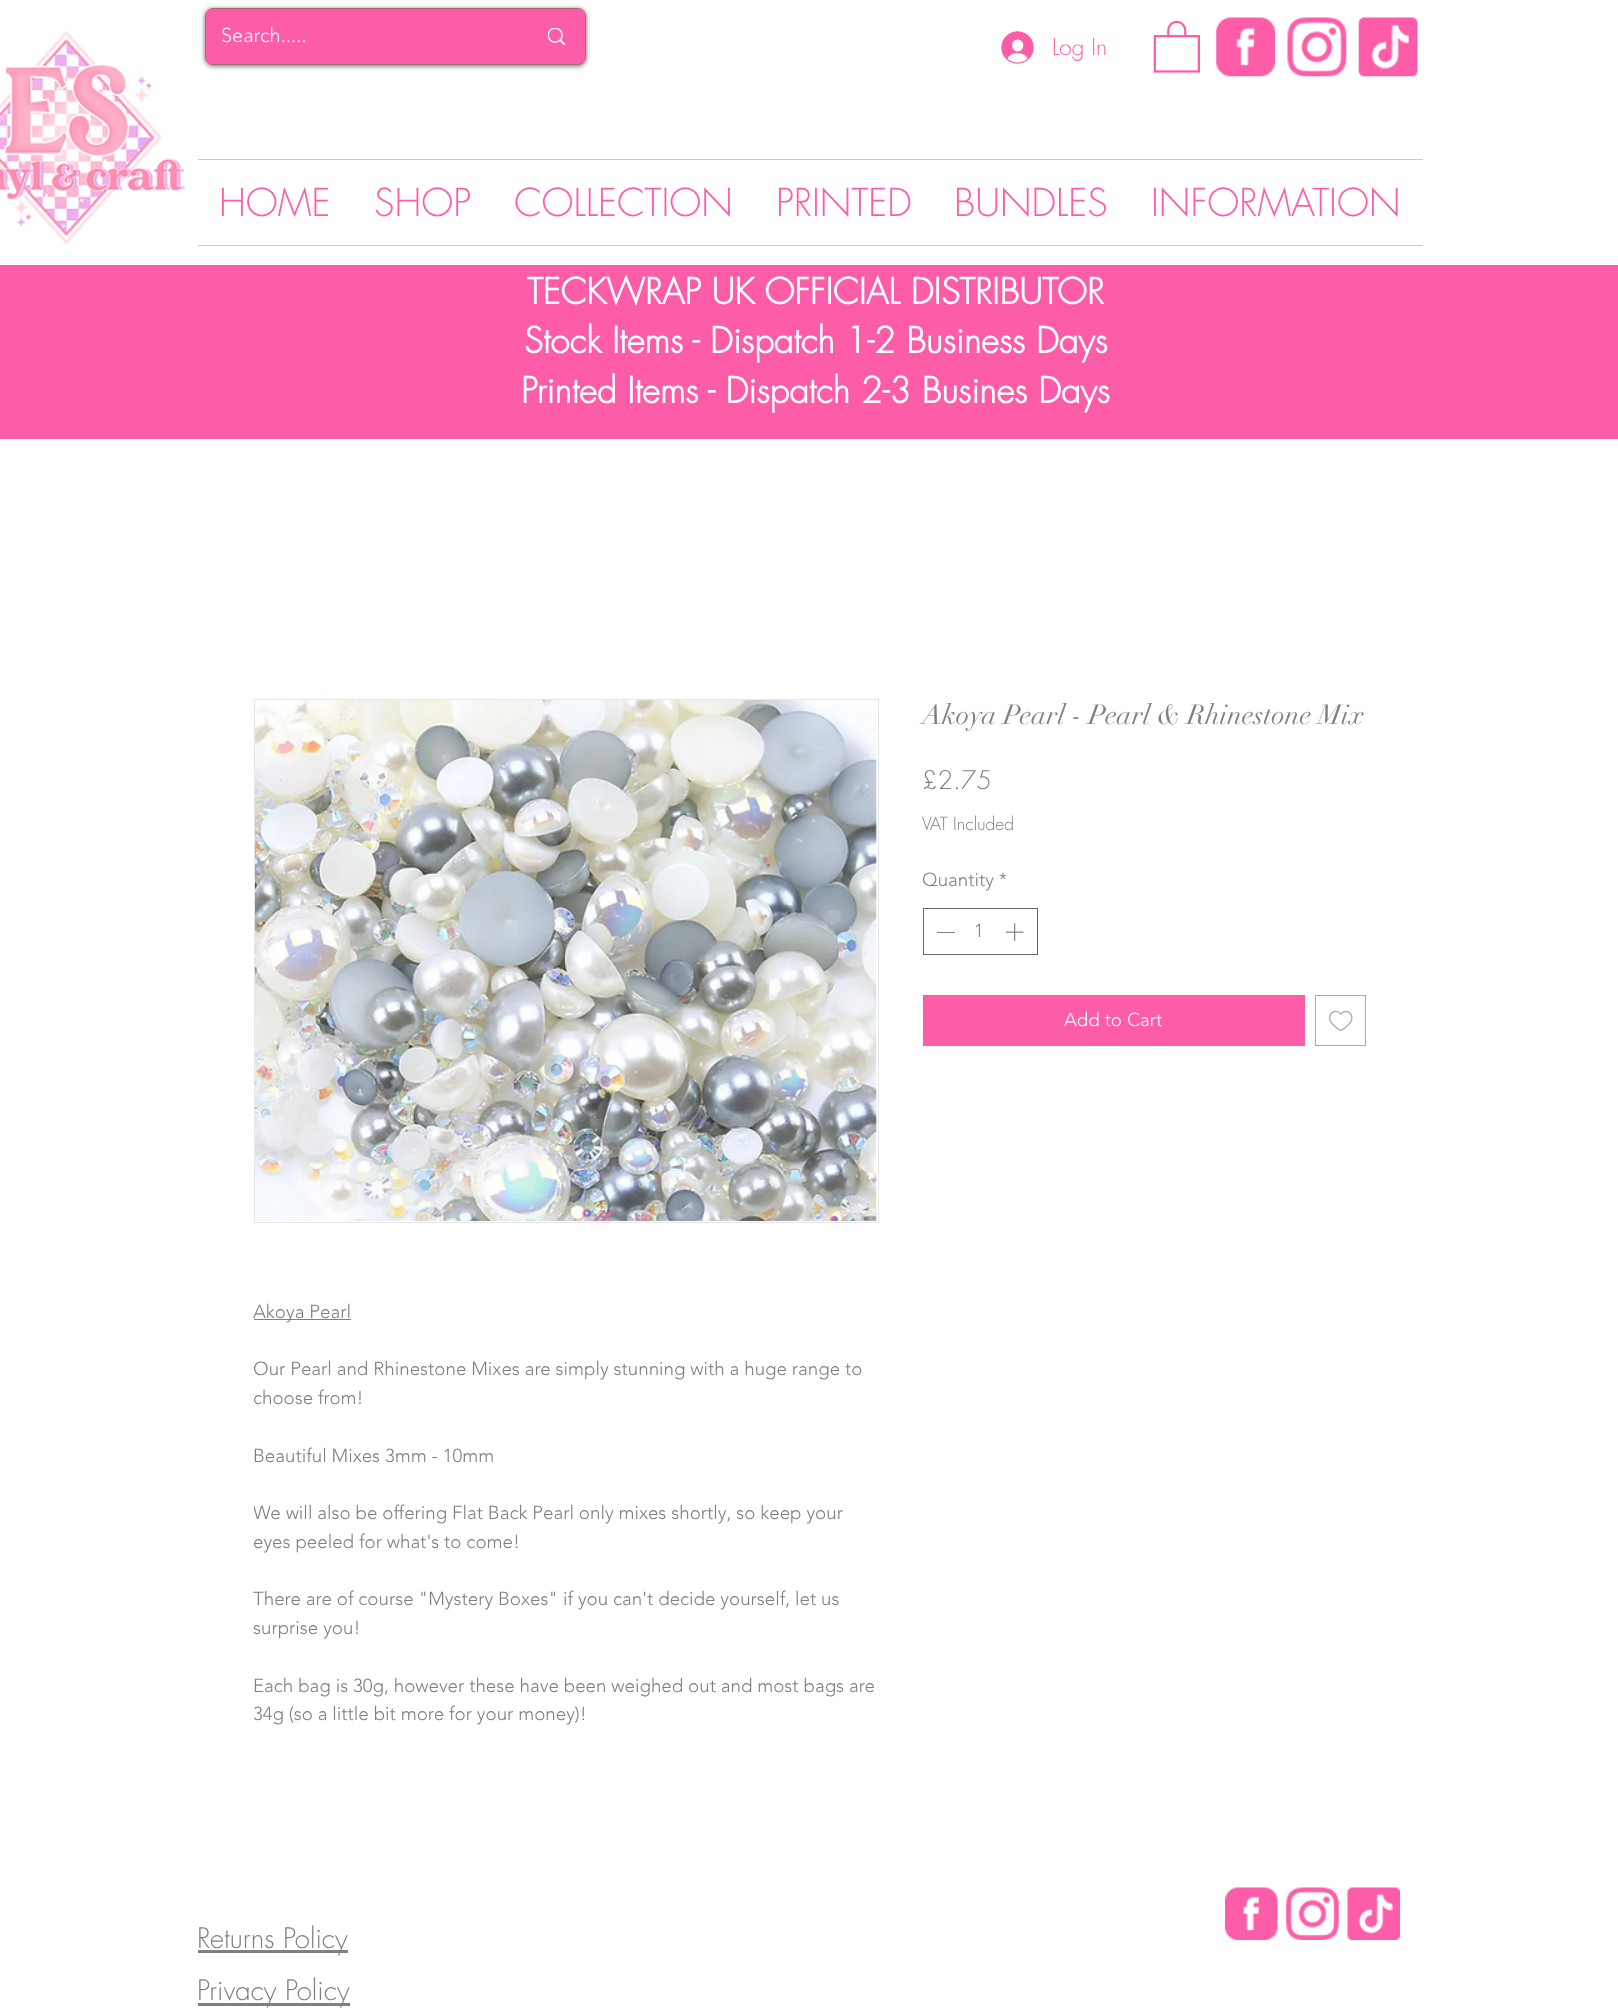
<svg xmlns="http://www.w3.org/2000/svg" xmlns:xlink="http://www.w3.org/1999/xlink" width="1618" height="2011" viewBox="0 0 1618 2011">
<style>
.cls-1{font:300 20px 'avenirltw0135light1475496';fill:#ffffff}
.cls-2{font:300 22.5px futura;fill:#fd5da8}
.cls-3{font:300 37.5px futura;fill:#fd5da8}
.cls-4{font:bold 35px futura;fill:#ffffff}
.cls-5{font:27.5px didot;fill:#808080}
.cls-6{font:300 25px futura;fill:#808080}
.cls-7{font:300 17.5px futura;fill:#808080}
.cls-8{font:300 18.75px 'avenirltw0135light1475496';fill:#808080}
.cls-9{font:300 18.75px 'avenirltw0135light1475496';fill:#ffffff}
.cls-10{font:300 27.5px futura;fill:#808080}
</style>
<defs>
<clipPath id="clip1"><rect x="254" y="1298" width="625" height="488"/></clipPath>
</defs>
<rect width="100%" height="100%" fill="#ffffff"/>
<image xlink:href="image0.png" x="0" y="31" width="186" height="213"/>
<rect fill="#000000" fill-opacity="0.6" filter="blur(2.5px)" x="205" y="9" width="381" height="57" rx="8"/>
<rect fill="none" stroke="#a26d6d" x="205.5" y="8.5" width="380" height="56" rx="7.5"/>
<rect fill="#fd5da8" x="206" y="9" width="379" height="55" rx="6"/>
<image xlink:href="image1.png" x="548" y="28" width="18" height="17"/>
<image xlink:href="image2.png" x="1001" y="31" width="33" height="33"/>
<image xlink:href="image3.png" x="1153" y="20" width="47" height="53"/>
<image xlink:href="image4.png" x="1216" y="17" width="59" height="60"/>
<image xlink:href="image5.png" x="1287" y="17" width="60" height="60"/>
<image xlink:href="image6.png" x="1358" y="17" width="60" height="60"/>
<rect fill="#cacaca" x="198" y="159" width="1225" height="1"/>
<rect fill="#cacaca" x="198" y="245" width="1225" height="1"/>
<rect fill="#fd5da8" x="0" y="265" width="1618" height="174"/>
<rect fill="none" stroke="#666666" x="923.5" y="908.5" width="114" height="46"/>
<rect fill="#808080" x="937" y="932" width="18" height="1"/>
<image xlink:href="image7.png" x="1005" y="923" width="19" height="18"/>
<rect fill="#fd5da8" x="923" y="995" width="382" height="51"/>
<rect fill="none" stroke="#aaaaaa" x="1315.5" y="995.5" width="50" height="50"/>
<image xlink:href="image8.png" x="1329" y="1010" width="24" height="22"/>
<rect fill="none" stroke="#e6e6e6" x="254.5" y="699.5" width="624" height="523"/>
<image xlink:href="image9.png" x="255" y="700" width="622" height="521"/>
<rect fill="#808080" x="254" y="1319" width="97" height="1"/>
<rect fill="#808080" x="198" y="1950" width="150" height="3"/>
<image xlink:href="image10.png" x="1225" y="1887" width="53" height="53"/>
<image xlink:href="image11.png" x="1286" y="1887" width="53" height="53"/>
<image xlink:href="image12.png" x="1347" y="1887" width="53" height="53"/>
<rect fill="#808080" x="198" y="2003" width="152" height="3"/>
<text class="cls-1" x="221" y="42">Search.....</text>
<text class="cls-2" x="1052" y="55">Log In</text>
<text class="cls-3" x="219" y="216">HOME</text>
<text class="cls-3" x="374" y="216">SHOP</text>
<text class="cls-3" x="514" y="216">COLLECTION</text>
<text class="cls-3" x="776" y="216">PRINTED</text>
<text class="cls-3" x="954" y="216">BUNDLES</text>
<text class="cls-3" x="1151" y="216">INFORMATION</text>
<text class="cls-4" x="527" y="304">TECKWRAP UK OFFICIAL DISTRIBUTOR</text>
<text class="cls-4" x="524" y="353">Stock Items - Dispatch 1-2 Business Days</text>
<text class="cls-4" x="521" y="403">Printed Items - Dispatch 2-3 Busines Days</text>
<text class="cls-5" x="922" y="724">Akoya Pearl - Pearl &amp; Rhinestone Mix</text>
<text class="cls-6" x="922" y="789">£2.75</text>
<text class="cls-7" x="922" y="830">VAT Included</text>
<text class="cls-8" x="922" y="886">Quantity *</text>
<text class="cls-8" x="974" y="937">1</text>
<text class="cls-9" x="1064" y="1026">Add to Cart</text>
<text class="cls-8" x="253" y="1318">Akoya Pearl</text>
<text class="cls-8"><tspan x="253" y="1375">Our Pearl and Rhinestone Mixes are simply stunning with a huge range to</tspan><tspan x="253" y="1404">choose from!</tspan></text>
<text class="cls-8" x="253" y="1462">Beautiful Mixes 3mm - 10mm</text>
<g clip-path="url(#clip1)">
<text class="cls-8" x="253" y="1519">We will also be offering Flat Back Pearl only mixes shortly, so keep your</text>
</g>
<text class="cls-8" x="253" y="1548">eyes peeled for what's to come!</text>
<text class="cls-8"><tspan x="253" y="1605">There are of course "Mystery Boxes" if you can't decide yourself, let us</tspan><tspan x="253" y="1634">surprise you!</tspan></text>
<text class="cls-8"><tspan x="253" y="1692">Each bag is 30g, however these have been weighed out and most bags are</tspan><tspan x="253" y="1720">34g (so a little bit more for your money)!</tspan></text>
<text class="cls-10"><tspan x="197" y="1948">Returns Policy</tspan><tspan x="197" y="2000">Privacy Policy</tspan></text>
</svg>
